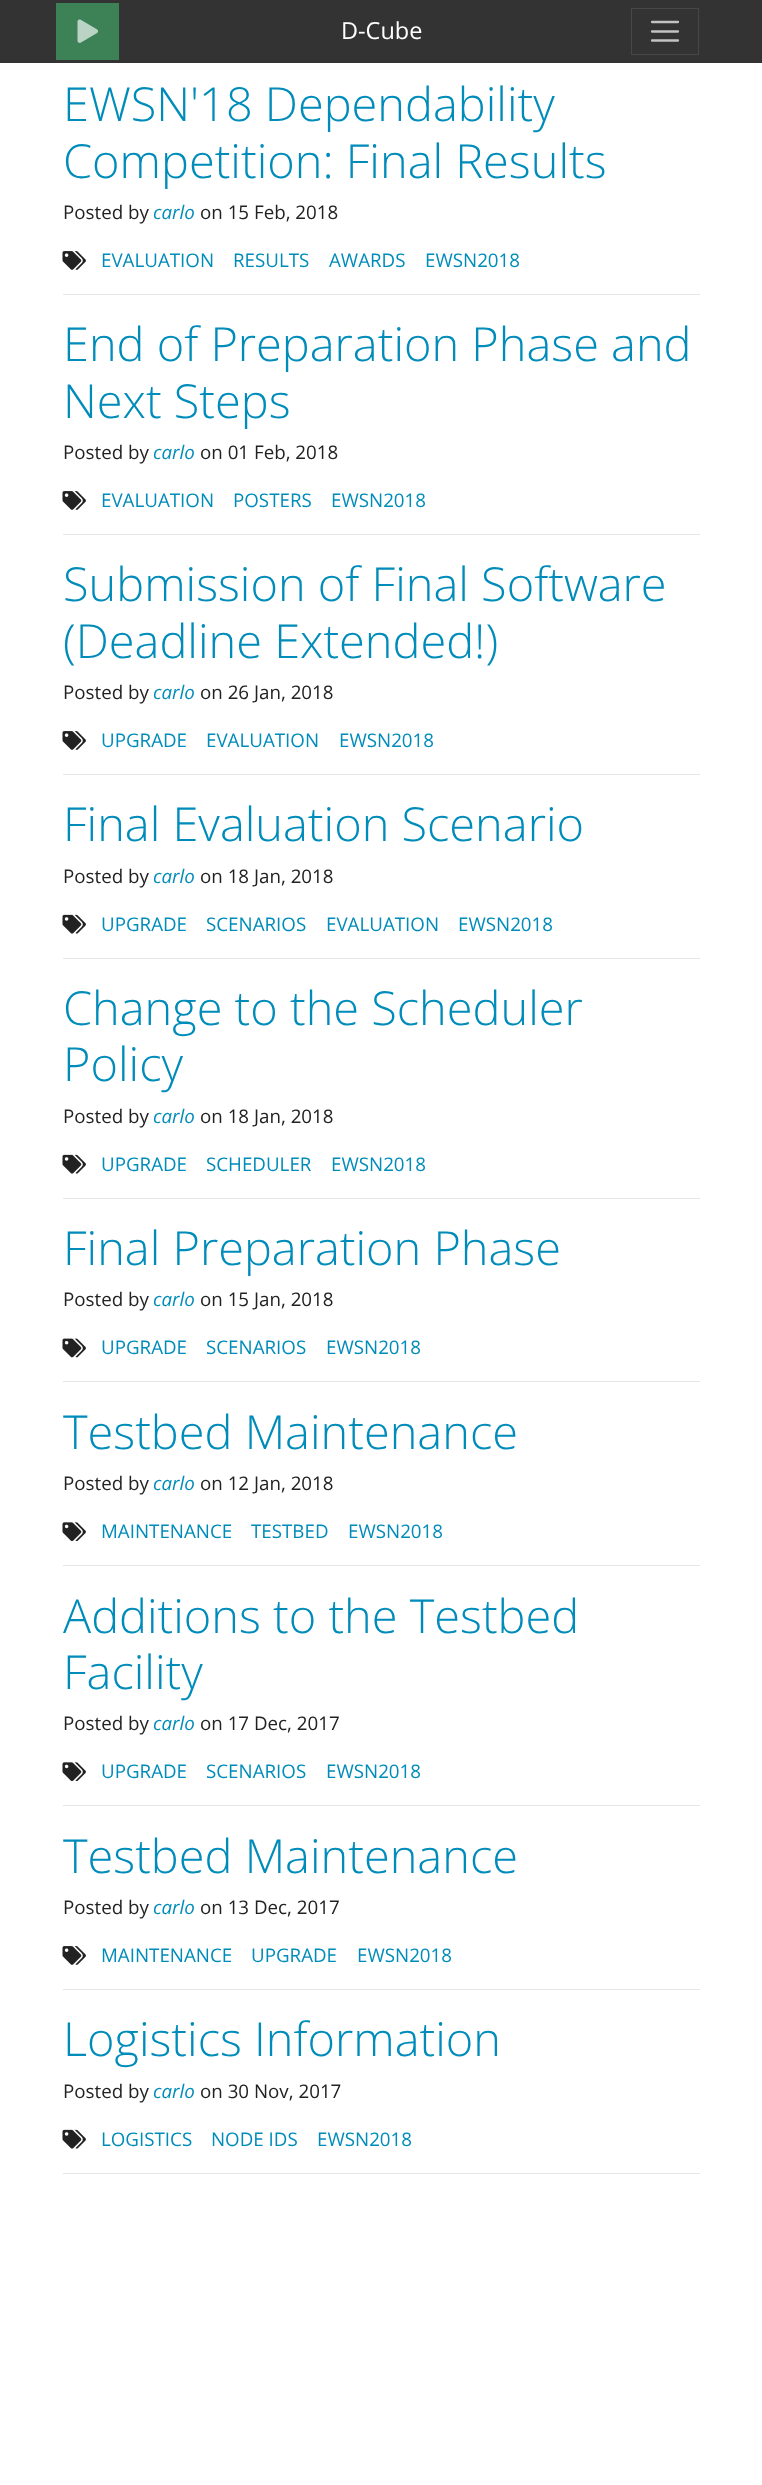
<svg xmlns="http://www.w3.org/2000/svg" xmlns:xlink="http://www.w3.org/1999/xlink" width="762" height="2485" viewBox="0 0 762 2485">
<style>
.cls-1{font:23.5px Open Sans;fill:#ffffff}
.cls-2{font:300 46.9px Open Sans;fill:#008cba}
.cls-3{font:18.75px Open Sans;fill:#222222}
.cls-4{font:italic 18.75px Open Sans;fill:#008cba}
.cls-5{font:18.75px Open Sans;fill:#008cba}
</style>
<rect width="100%" height="100%" fill="#ffffff"/>
<rect fill="#333333" x="0" y="0" width="762" height="63"/>
<rect fill="#3d8257" x="56" y="3" width="63" height="57"/>
<image xlink:href="image0.png" x="77" y="19" width="21" height="24"/>
<rect fill="none" stroke="#474747" x="631.5" y="8.5" width="67" height="46"/>
<path fill="none" stroke="#c2c2c2" stroke-width="2.3" stroke-linecap="round" d="M652 22H678M652 31.5H678M652 40.5H678"/>
<image xlink:href="image1.png" x="62" y="251" width="24" height="19"/>
<rect fill="#e6e6e6" x="63" y="294" width="637" height="1"/>
<image xlink:href="image1.png" x="62" y="491" width="24" height="19"/>
<rect fill="#e6e6e6" x="63" y="534" width="637" height="1"/>
<image xlink:href="image1.png" x="62" y="731" width="24" height="19"/>
<rect fill="#e6e6e6" x="63" y="774" width="637" height="1"/>
<image xlink:href="image2.png" x="62" y="914" width="24" height="20"/>
<rect fill="#e6e6e6" x="63" y="958" width="637" height="1"/>
<image xlink:href="image2.png" x="62" y="1154" width="24" height="20"/>
<rect fill="#e6e6e6" x="63" y="1198" width="637" height="1"/>
<image xlink:href="image3.png" x="62" y="1338" width="24" height="20"/>
<rect fill="#e6e6e6" x="63" y="1381" width="637" height="1"/>
<image xlink:href="image4.png" x="62" y="1522" width="24" height="20"/>
<rect fill="#e6e6e6" x="63" y="1565" width="637" height="1"/>
<image xlink:href="image4.png" x="62" y="1762" width="24" height="20"/>
<rect fill="#e6e6e6" x="63" y="1805" width="637" height="1"/>
<image xlink:href="image1.png" x="62" y="1946" width="24" height="19"/>
<rect fill="#e6e6e6" x="63" y="1989" width="637" height="1"/>
<image xlink:href="image2.png" x="62" y="2129" width="24" height="20"/>
<rect fill="#e6e6e6" x="63" y="2173" width="637" height="1"/>
<text class="cls-1" x="341" y="39">D-Cube</text>
<text class="cls-2"><tspan x="63" y="121">EWSN'18 Dependability</tspan><tspan x="63" y="178">Competition: Final Results</tspan></text>
<text class="cls-3" x="63" y="219">Posted by</text>
<text class="cls-4" x="153" y="219">carlo</text>
<text class="cls-3" x="200" y="219">on 15 Feb, 2018</text>
<text class="cls-5" x="101" y="267">EVALUATION</text>
<text class="cls-5" x="233" y="267">RESULTS</text>
<text class="cls-5" x="329" y="267">AWARDS</text>
<text class="cls-5" x="425" y="267">EWSN2018</text>
<text class="cls-2"><tspan x="63" y="361">End of Preparation Phase and</tspan><tspan x="63" y="418">Next Steps</tspan></text>
<text class="cls-3" x="63" y="459">Posted by</text>
<text class="cls-4" x="153" y="459">carlo</text>
<text class="cls-3" x="200" y="459">on 01 Feb, 2018</text>
<text class="cls-5" x="101" y="507">EVALUATION</text>
<text class="cls-5" x="233" y="507">POSTERS</text>
<text class="cls-5" x="331" y="507">EWSN2018</text>
<text class="cls-2"><tspan x="63" y="601">Submission of Final Software</tspan><tspan x="63" y="658">(Deadline Extended!)</tspan></text>
<text class="cls-3" x="63" y="699">Posted by</text>
<text class="cls-4" x="153" y="699">carlo</text>
<text class="cls-3" x="200" y="699">on 26 Jan, 2018</text>
<text class="cls-5" x="101" y="747">UPGRADE</text>
<text class="cls-5" x="206" y="747">EVALUATION</text>
<text class="cls-5" x="339" y="747">EWSN2018</text>
<text class="cls-2" x="63" y="841">Final Evaluation Scenario</text>
<text class="cls-3" x="63" y="883">Posted by</text>
<text class="cls-4" x="153" y="883">carlo</text>
<text class="cls-3" x="200" y="883">on 18 Jan, 2018</text>
<text class="cls-5" x="101" y="931">UPGRADE</text>
<text class="cls-5" x="206" y="931">SCENARIOS</text>
<text class="cls-5" x="326" y="931">EVALUATION</text>
<text class="cls-5" x="458" y="931">EWSN2018</text>
<text class="cls-2"><tspan x="63" y="1025">Change to the Scheduler</tspan><tspan x="63" y="1081">Policy</tspan></text>
<text class="cls-3" x="63" y="1123">Posted by</text>
<text class="cls-4" x="153" y="1123">carlo</text>
<text class="cls-3" x="200" y="1123">on 18 Jan, 2018</text>
<text class="cls-5" x="101" y="1171">UPGRADE</text>
<text class="cls-5" x="206" y="1171">SCHEDULER</text>
<text class="cls-5" x="331" y="1171">EWSN2018</text>
<text class="cls-2" x="63" y="1265">Final Preparation Phase</text>
<text class="cls-3" x="63" y="1306">Posted by</text>
<text class="cls-4" x="153" y="1306">carlo</text>
<text class="cls-3" x="200" y="1306">on 15 Jan, 2018</text>
<text class="cls-5" x="101" y="1354">UPGRADE</text>
<text class="cls-5" x="206" y="1354">SCENARIOS</text>
<text class="cls-5" x="326" y="1354">EWSN2018</text>
<text class="cls-2" x="63" y="1449">Testbed Maintenance</text>
<text class="cls-3" x="63" y="1490">Posted by</text>
<text class="cls-4" x="153" y="1490">carlo</text>
<text class="cls-3" x="200" y="1490">on 12 Jan, 2018</text>
<text class="cls-5" x="101" y="1538">MAINTENANCE</text>
<text class="cls-5" x="251" y="1538">TESTBED</text>
<text class="cls-5" x="348" y="1538">EWSN2018</text>
<text class="cls-2"><tspan x="63" y="1633">Additions to the Testbed</tspan><tspan x="63" y="1689">Facility</tspan></text>
<text class="cls-3" x="63" y="1730">Posted by</text>
<text class="cls-4" x="153" y="1730">carlo</text>
<text class="cls-3" x="200" y="1730">on 17 Dec, 2017</text>
<text class="cls-5" x="101" y="1778">UPGRADE</text>
<text class="cls-5" x="206" y="1778">SCENARIOS</text>
<text class="cls-5" x="326" y="1778">EWSN2018</text>
<text class="cls-2" x="63" y="1873">Testbed Maintenance</text>
<text class="cls-3" x="63" y="1914">Posted by</text>
<text class="cls-4" x="153" y="1914">carlo</text>
<text class="cls-3" x="200" y="1914">on 13 Dec, 2017</text>
<text class="cls-5" x="101" y="1962">MAINTENANCE</text>
<text class="cls-5" x="251" y="1962">UPGRADE</text>
<text class="cls-5" x="357" y="1962">EWSN2018</text>
<text class="cls-2" x="63" y="2056">Logistics Information</text>
<text class="cls-3" x="63" y="2098">Posted by</text>
<text class="cls-4" x="153" y="2098">carlo</text>
<text class="cls-3" x="200" y="2098">on 30 Nov, 2017</text>
<text class="cls-5" x="101" y="2146">LOGISTICS</text>
<text class="cls-5" x="211" y="2146">NODE IDS</text>
<text class="cls-5" x="317" y="2146">EWSN2018</text>
</svg>
